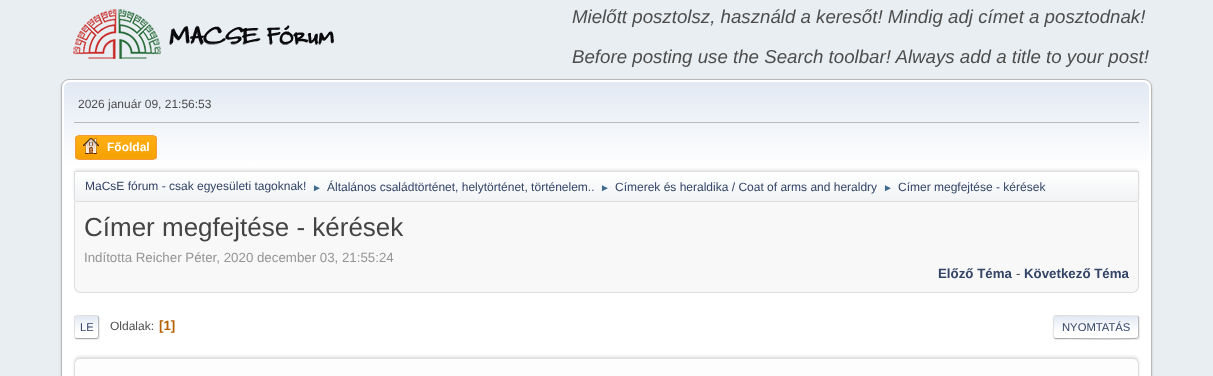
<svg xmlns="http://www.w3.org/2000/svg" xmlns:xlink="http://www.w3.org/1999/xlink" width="1213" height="376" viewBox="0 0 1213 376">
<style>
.cls-1{font:italic 18.7px Liberation Sans;fill:#4d4d4d}
.cls-2{font:12px Liberation Sans;fill:#4d4d4d}
.cls-3{font:bold 12px Liberation Sans;fill:#ffffff}
.cls-4{font:12px Liberation Sans;fill:#334466}
.cls-5{font:10px Liberation Sans;fill:#3f6b8c}
.cls-6{font:26px Liberation Sans;fill:#444444}
.cls-7{font:13.3px Liberation Sans;fill:#959595}
.cls-8{font:bold 13.3px Liberation Sans;fill:#334466}
.cls-9{font:13.3px Liberation Sans;fill:#4d4d4d}
.cls-10{font:11.25px Liberation Sans;fill:#334466}
.cls-11{font:bold 13.3px Liberation Sans;fill:#b46100}
</style>
<defs>
<linearGradient id="g1" gradientUnits="userSpaceOnUse" x1="607" y1="82" x2="607" y2="204"><stop offset="0" stop-color="#e2e9f3"/><stop offset="0.7" stop-color="#ffffff"/></linearGradient>
<clipPath id="clip1"><rect x="75" y="135" width="82" height="25" rx="4"/></clipPath>
<linearGradient id="g2" gradientUnits="userSpaceOnUse" x1="116" y1="136" x2="116" y2="159"><stop offset="0" stop-color="#ffae14"/><stop offset="1" stop-color="#f5a100"/></linearGradient>
<clipPath id="clip2"><rect x="74" y="171" width="1065" height="31" rx="2"/></clipPath>
<linearGradient id="g3" gradientUnits="userSpaceOnUse" x1="607" y1="172" x2="607" y2="201"><stop offset="0" stop-color="#ffffff"/><stop offset="0.95" stop-color="#f1f3f5"/></linearGradient>
<clipPath id="clip3"><rect x="74" y="315" width="25" height="24" rx="3"/></clipPath>
<linearGradient id="g4" gradientUnits="userSpaceOnUse" x1="87" y1="316" x2="87" y2="338"><stop offset="0" stop-color="#e2e9f3"/><stop offset="0.7" stop-color="#ffffff"/></linearGradient>
<clipPath id="clip4"><rect x="74" y="308" width="1065" height="38"/></clipPath>
<clipPath id="clip5"><path d="M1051 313H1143V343H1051ZM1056 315H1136C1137.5 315 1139 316.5 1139 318V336C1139 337.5 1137.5 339 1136 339H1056C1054.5 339 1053 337.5 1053 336V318C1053 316.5 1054.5 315 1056 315Z" clip-rule="evenodd"/></clipPath>
<clipPath id="clip6"><rect x="1053" y="315" width="86" height="24" rx="3"/></clipPath>
<linearGradient id="g5" gradientUnits="userSpaceOnUse" x1="1096" y1="316" x2="1096" y2="338"><stop offset="0" stop-color="#e2e9f3"/><stop offset="0.7" stop-color="#ffffff"/></linearGradient>
<linearGradient id="g6" gradientUnits="userSpaceOnUse" x1="1096" y1="338" x2="1096" y2="360"><stop offset="0" stop-color="#e2e9f3"/><stop offset="0.7" stop-color="#ffffff"/></linearGradient>
</defs>
<rect width="100%" height="100%" fill="#e9eef2"/>
<image xlink:href="image0.png" x="73" y="9" width="261" height="50"/>
<rect fill="#000000" fill-opacity="0.14" filter="blur(1.5px)" x="61" y="81" width="1091" height="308" rx="8"/>
<rect fill="#ffffff" stroke="#b8b8b8" x="61.5" y="79.5" width="1090" height="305" rx="7.5"/>
<path fill="url(#g1)" d="M70 82H1143C1146.5 82 1149 84.5 1149 88V204H64V88C64 84.5 66.5 82 70 82Z"/>
<rect fill="#bbbbbb" x="74" y="122" width="1065" height="1"/>
<g clip-path="url(#clip1)">
<rect fill="url(#g2)" x="75" y="136" width="82" height="23"/>
</g>
<rect fill="none" stroke="#f49a3a" x="75.5" y="135.5" width="81" height="24" rx="3.5"/>
<image xlink:href="image1.png" x="83" y="138" width="16" height="16"/>
<rect fill="#000000" fill-opacity="0.08" filter="blur(1px)" x="74" y="169" width="1065" height="31" rx="2"/>
<g clip-path="url(#clip2)">
<rect fill="url(#g3)" x="74" y="172" width="1065" height="29"/>
</g>
<rect fill="none" stroke="#dddddd" x="74.5" y="171.5" width="1064" height="30" rx="1.5"/>
<path fill="#f8f8f8" d="M74 202H1139V286C1139 290 1136 293 1132 293H81C77 293 74 290 74 286Z"/>
<path fill="#dddddd" fill-rule="evenodd" d="M74 202H1139V286C1139 290 1136 293 1132 293H81C77 293 74 290 74 286ZM75 202H1138V286C1138 289 1135 292 1132 292H81C78 292 75 289 75 286Z"/>
<rect fill="#dddddd" fill-opacity="0.57" filter="blur(0.5px)" x="75" y="316" width="25" height="24" rx="3"/>
<g clip-path="url(#clip3)">
<rect fill="url(#g4)" x="74" y="316" width="25" height="22"/>
</g>
<path fill="none" stroke="#bbbbbb" d="M98 316C98 316.5 98.5 317.5 98.5 318V336C98.5 336.5 98 337.5 98 338"/>
<path fill="none" stroke="#aaaaaa" d="M98 338C97.5 338 96.5 338.5 96 338.5H77C76.5 338.5 75.5 338 75 338"/>
<g clip-path="url(#clip4)">
<path fill="none" stroke="#dddddd" d="M75 338C74 336.5 74.5 334.5 74.5 333V327C74.5 313.5 72.5 315.5 86.5 315.5H93C94 315.5 96.5 315 98 316"/>
</g>
<g clip-path="url(#clip5)">
<rect fill="#dddddd" fill-opacity="0.57" filter="blur(0.5px)" x="1054" y="316" width="86" height="24" rx="3"/>
</g>
<rect fill="#ffffff" x="1053" y="315" width="86" height="24" rx="3"/>
<g clip-path="url(#clip6)">
<rect fill="url(#g5)" x="1053" y="316" width="86" height="22"/>
<rect fill="url(#g6)" x="1053" y="338" width="86" height="1"/>
</g>
<path fill="none" stroke="#bbbbbb" d="M1138 316C1138 316.5 1138.5 317.5 1138.5 318V336C1138.5 336.5 1138 337.5 1138 338"/>
<path fill="none" stroke="#aaaaaa" d="M1138 338H1137.5C1135.5 339.5 1076.5 338.5 1069.5 338.5H1056L1054 338"/>
<path fill="none" stroke="#dddddd" d="M1054 338C1052.5 336 1053.5 329 1053.5 327V321C1053.5 319 1053 315.5 1056 315.5L1137 316H1138"/>
<rect fill="#000000" fill-opacity="0.1" filter="blur(1px)" x="74" y="356" width="1065" height="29" rx="6"/>
<rect fill="#fdfdfd" stroke="#dddddd" x="74.5" y="358.5" width="1064" height="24" rx="5.5"/>
<text class="cls-1" x="572" y="23">Mielőtt posztolsz, használd a keresőt! Mindig adj címet a posztodnak!</text>
<text class="cls-1" x="572" y="63">Before posting use the Search toolbar! Always add a title to your post!</text>
<text class="cls-2" x="78" y="108">2026 január 09, 21:56:53</text>
<text class="cls-3" x="107" y="151">Főoldal</text>
<text class="cls-4" x="85" y="190">MaCsE fórum - csak egyesületi tagoknak!</text>
<text class="cls-5" x="312" y="191">►</text>
<text class="cls-4" x="327" y="191">Általános családtörténet, helytörténet, történelem..</text>
<text class="cls-5" x="600" y="191">►</text>
<text class="cls-4" x="615" y="191">Címerek és heraldika / Coat of arms and heraldry</text>
<text class="cls-5" x="883" y="191">►</text>
<text class="cls-4" x="898" y="191">Címer megfejtése - kérések</text>
<text class="cls-6" x="84" y="236">Címer megfejtése - kérések</text>
<text class="cls-7" x="84" y="262">Indította Reicher Péter, 2020 december 03, 21:55:24</text>
<text class="cls-8" x="938" y="278">Előző Téma</text>
<text class="cls-9" x="1016" y="278">-</text>
<text class="cls-8" x="1024" y="278">Következő Téma</text>
<text class="cls-10" x="80" y="331">LE</text>
<text class="cls-2" x="110" y="330">Oldalak:</text>
<text class="cls-11" x="159" y="330">[1]</text>
<text class="cls-10" x="1062" y="331">NYOMTATÁS</text>
</svg>
